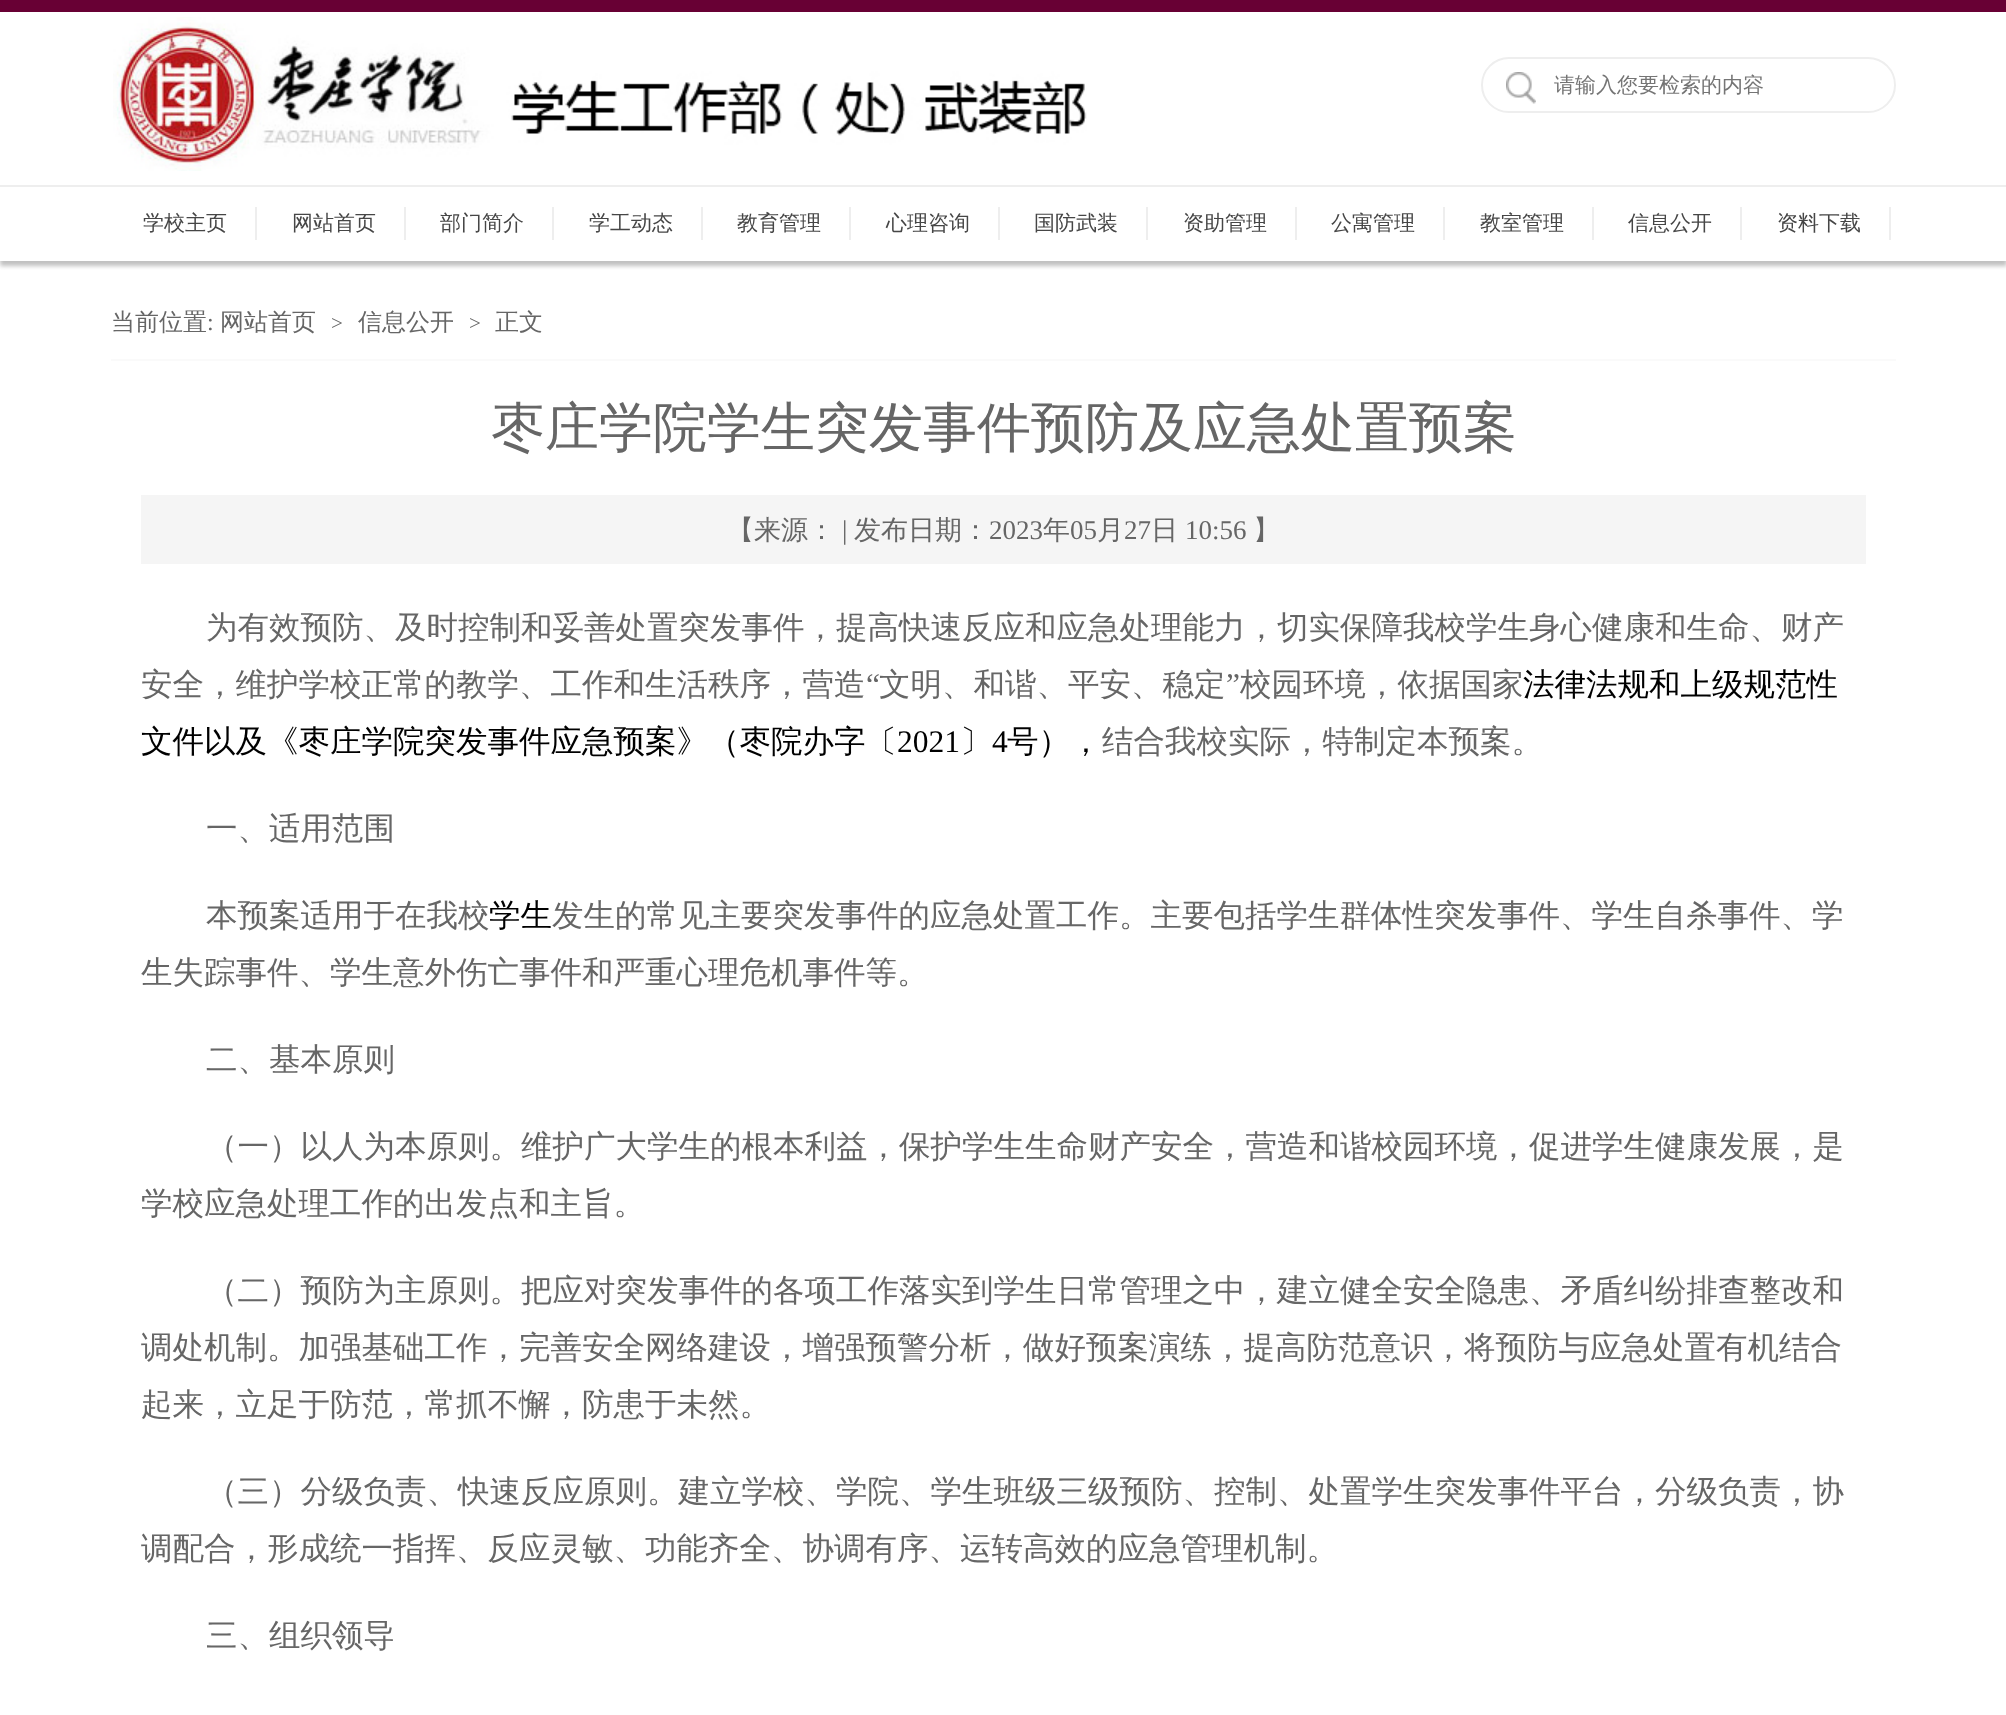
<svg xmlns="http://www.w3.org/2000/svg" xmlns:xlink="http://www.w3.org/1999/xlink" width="2006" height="1715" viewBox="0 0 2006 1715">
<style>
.cls-1{font:500 21px WenQuanYi Zen Hei;fill:#757575}
.cls-2{font:500 21px WenQuanYi Zen Hei;fill:#464646}
.cls-3{font:500 24px WenQuanYi Zen Hei;fill:#666666}
.cls-4{font:24px Liberation Serif;fill:#666666}
.cls-5{font:21px Liberation Serif;fill:#666666}
.cls-6{font:500 54px WenQuanYi Zen Hei;fill:#666666}
.cls-7{font:500 27px WenQuanYi Zen Hei;fill:#666666}
.cls-8{font:27px Liberation Serif;fill:#666666}
.cls-9{font:500 31.5px WenQuanYi Zen Hei;fill:#666666}
.cls-10{font:31.5px Liberation Serif;fill:#666666}
.cls-11{font:500 31.5px WenQuanYi Zen Hei;fill:#000000}
.cls-12{font:31.5px Liberation Serif;fill:#000000}
</style>
<defs>
<clipPath id="clip1"><rect x="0" y="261" width="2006" height="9"/></clipPath>
<clipPath id="clip2"><rect x="1554" y="62" width="330" height="46" rx="23"/></clipPath>
</defs>
<rect width="100%" height="100%" fill="#ffffff"/>
<rect fill="#680034" x="0" y="0" width="2006" height="12"/>
<image xlink:href="image0.png" x="113" y="17" width="974" height="154"/>
<rect fill="none" stroke="#eeeeee" stroke-width="2" x="1482" y="58" width="413" height="54" rx="27"/>
<image xlink:href="image1.png" x="1506" y="72" width="30" height="32"/>
<g clip-path="url(#clip1)">
<rect fill="#c0c0c0" filter="blur(2px)" x="0" y="189" width="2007" height="77"/>
</g>
<rect fill="#eeeeee" x="0" y="185" width="2006" height="2"/>
<rect fill="#eeeeee" x="255" y="207" width="2" height="33"/>
<rect fill="#eeeeee" x="404" y="207" width="2" height="33"/>
<rect fill="#eeeeee" x="552" y="207" width="2" height="33"/>
<rect fill="#eeeeee" x="701" y="207" width="2" height="33"/>
<rect fill="#eeeeee" x="849" y="207" width="2" height="33"/>
<rect fill="#eeeeee" x="998" y="207" width="2" height="33"/>
<rect fill="#eeeeee" x="1146" y="207" width="2" height="33"/>
<rect fill="#eeeeee" x="1295" y="207" width="2" height="33"/>
<rect fill="#eeeeee" x="1443" y="207" width="2" height="33"/>
<rect fill="#eeeeee" x="1592" y="207" width="2" height="33"/>
<rect fill="#eeeeee" x="1740" y="207" width="2" height="33"/>
<rect fill="#eeeeee" x="1889" y="207" width="2" height="33"/>
<rect fill="#fafafa" x="111" y="359" width="1785" height="2"/>
<rect fill="#f5f5f5" x="141" y="495" width="1725" height="69"/>
<g clip-path="url(#clip2)">
<text class="cls-1" x="1554" y="92">请输入您要检索的内容</text>
</g>
<text class="cls-2" x="143" y="230">学校主页</text>
<text class="cls-2" x="292" y="230">网站首页</text>
<text class="cls-2" x="440" y="230">部门简介</text>
<text class="cls-2" x="589" y="230">学工动态</text>
<text class="cls-2" x="737" y="230">教育管理</text>
<text class="cls-2" x="886" y="230">心理咨询</text>
<text class="cls-2" x="1034" y="230">国防武装</text>
<text class="cls-2" x="1183" y="230">资助管理</text>
<text class="cls-2" x="1331" y="230">公寓管理</text>
<text class="cls-2" x="1480" y="230">教室管理</text>
<text class="cls-2" x="1628" y="230">信息公开</text>
<text class="cls-2" x="1777" y="230">资料下载</text>
<text class="cls-3" x="111" y="330">当前位置</text>
<text class="cls-4" x="207" y="330">:</text>
<text class="cls-3" x="220" y="330">网站首页</text>
<text class="cls-5" x="331" y="330">&gt;</text>
<text class="cls-3" x="358" y="330">信息公开</text>
<text class="cls-5" x="469" y="330">&gt;</text>
<text class="cls-3" x="495" y="330">正文</text>
<text class="cls-6" x="491" y="446">枣庄学院学生突发事件预防及应急处置预案</text>
<text class="cls-7" x="727" y="539">【来源：</text>
<text class="cls-8" x="842" y="539">|</text>
<text class="cls-7" x="854" y="539">发布日期：</text>
<text class="cls-8" x="989" y="539">2023</text>
<text class="cls-7" x="1043" y="539">年</text>
<text class="cls-8" x="1070" y="539">05</text>
<text class="cls-7" x="1097" y="539">月</text>
<text class="cls-8" x="1124" y="539">27</text>
<text class="cls-7" x="1151" y="539">日</text>
<text class="cls-8" x="1185" y="539">10:56</text>
<text class="cls-7" x="1253" y="539">】</text>
<text class="cls-9" x="206" y="638">为有效预防、及时控制和妥善处置突发事件，提高快速反应和应急处理能力，切实保障我校学生身心健康和生命、财产</text>
<text class="cls-9" x="141" y="695">安全，维护学校正常的教学、工作和生活秩序，营造</text>
<text class="cls-10" x="866" y="695">“</text>
<text class="cls-9" x="879" y="695">文明、和谐、平安、稳定</text>
<text class="cls-10" x="1226" y="695">”</text>
<text class="cls-9" x="1240" y="695">校园环境，依据国家</text>
<text class="cls-11" x="1523" y="695">法律法规和上级规范性</text>
<text class="cls-11" x="141" y="752">文件以及《枣庄学院突发事件应急预案》（枣院办字〔</text>
<text class="cls-12" x="897" y="752">2021</text>
<text class="cls-11" x="960" y="752">〕</text>
<text class="cls-12" x="992" y="752">4</text>
<text class="cls-11" x="1007" y="752">号），</text>
<text class="cls-9" x="1102" y="752">结合我校实际，特制定本预案。</text>
<text class="cls-9" x="206" y="839">一、适用范围</text>
<text class="cls-9" x="206" y="926">本预案适用于在我校</text>
<text class="cls-11" x="489" y="926">学生</text>
<text class="cls-9" x="552" y="926">发生的常见主要突发事件的应急处置工作。主要包括学生群体性突发事件、学生自杀事件、学</text>
<text class="cls-9" x="141" y="983">生失踪事件、学生意外伤亡事件和严重心理危机事件等。</text>
<text class="cls-9" x="206" y="1070">二、基本原则</text>
<text class="cls-9" x="206" y="1157">（一）以人为本原则。维护广大学生的根本利益，保护学生生命财产安全，营造和谐校园环境，促进学生健康发展，是</text>
<text class="cls-9" x="141" y="1214">学校应急处理工作的出发点和主旨。</text>
<text class="cls-9" x="206" y="1301">（二）预防为主原则。把应对突发事件的各项工作落实到学生日常管理之中，建立健全安全隐患、矛盾纠纷排查整改和</text>
<text class="cls-9"><tspan x="141" y="1358">调处机制。加强基础工作，完善安全网络建设，增强预警分析，做好预案演练，提高防范意识，将预防与应急处置有机结合</tspan><tspan x="141" y="1415">起来，立足于防范，常抓不懈，防患于未然。</tspan></text>
<text class="cls-9" x="206" y="1502">（三）分级负责、快速反应原则。建立学校、学院、学生班级三级预防、控制、处置学生突发事件平台，分级负责，协</text>
<text class="cls-9" x="141" y="1559">调配合，形成统一指挥、反应灵敏、功能齐全、协调有序、运转高效的应急管理机制。</text>
<text class="cls-9" x="206" y="1646">三、组织领导</text>
</svg>
